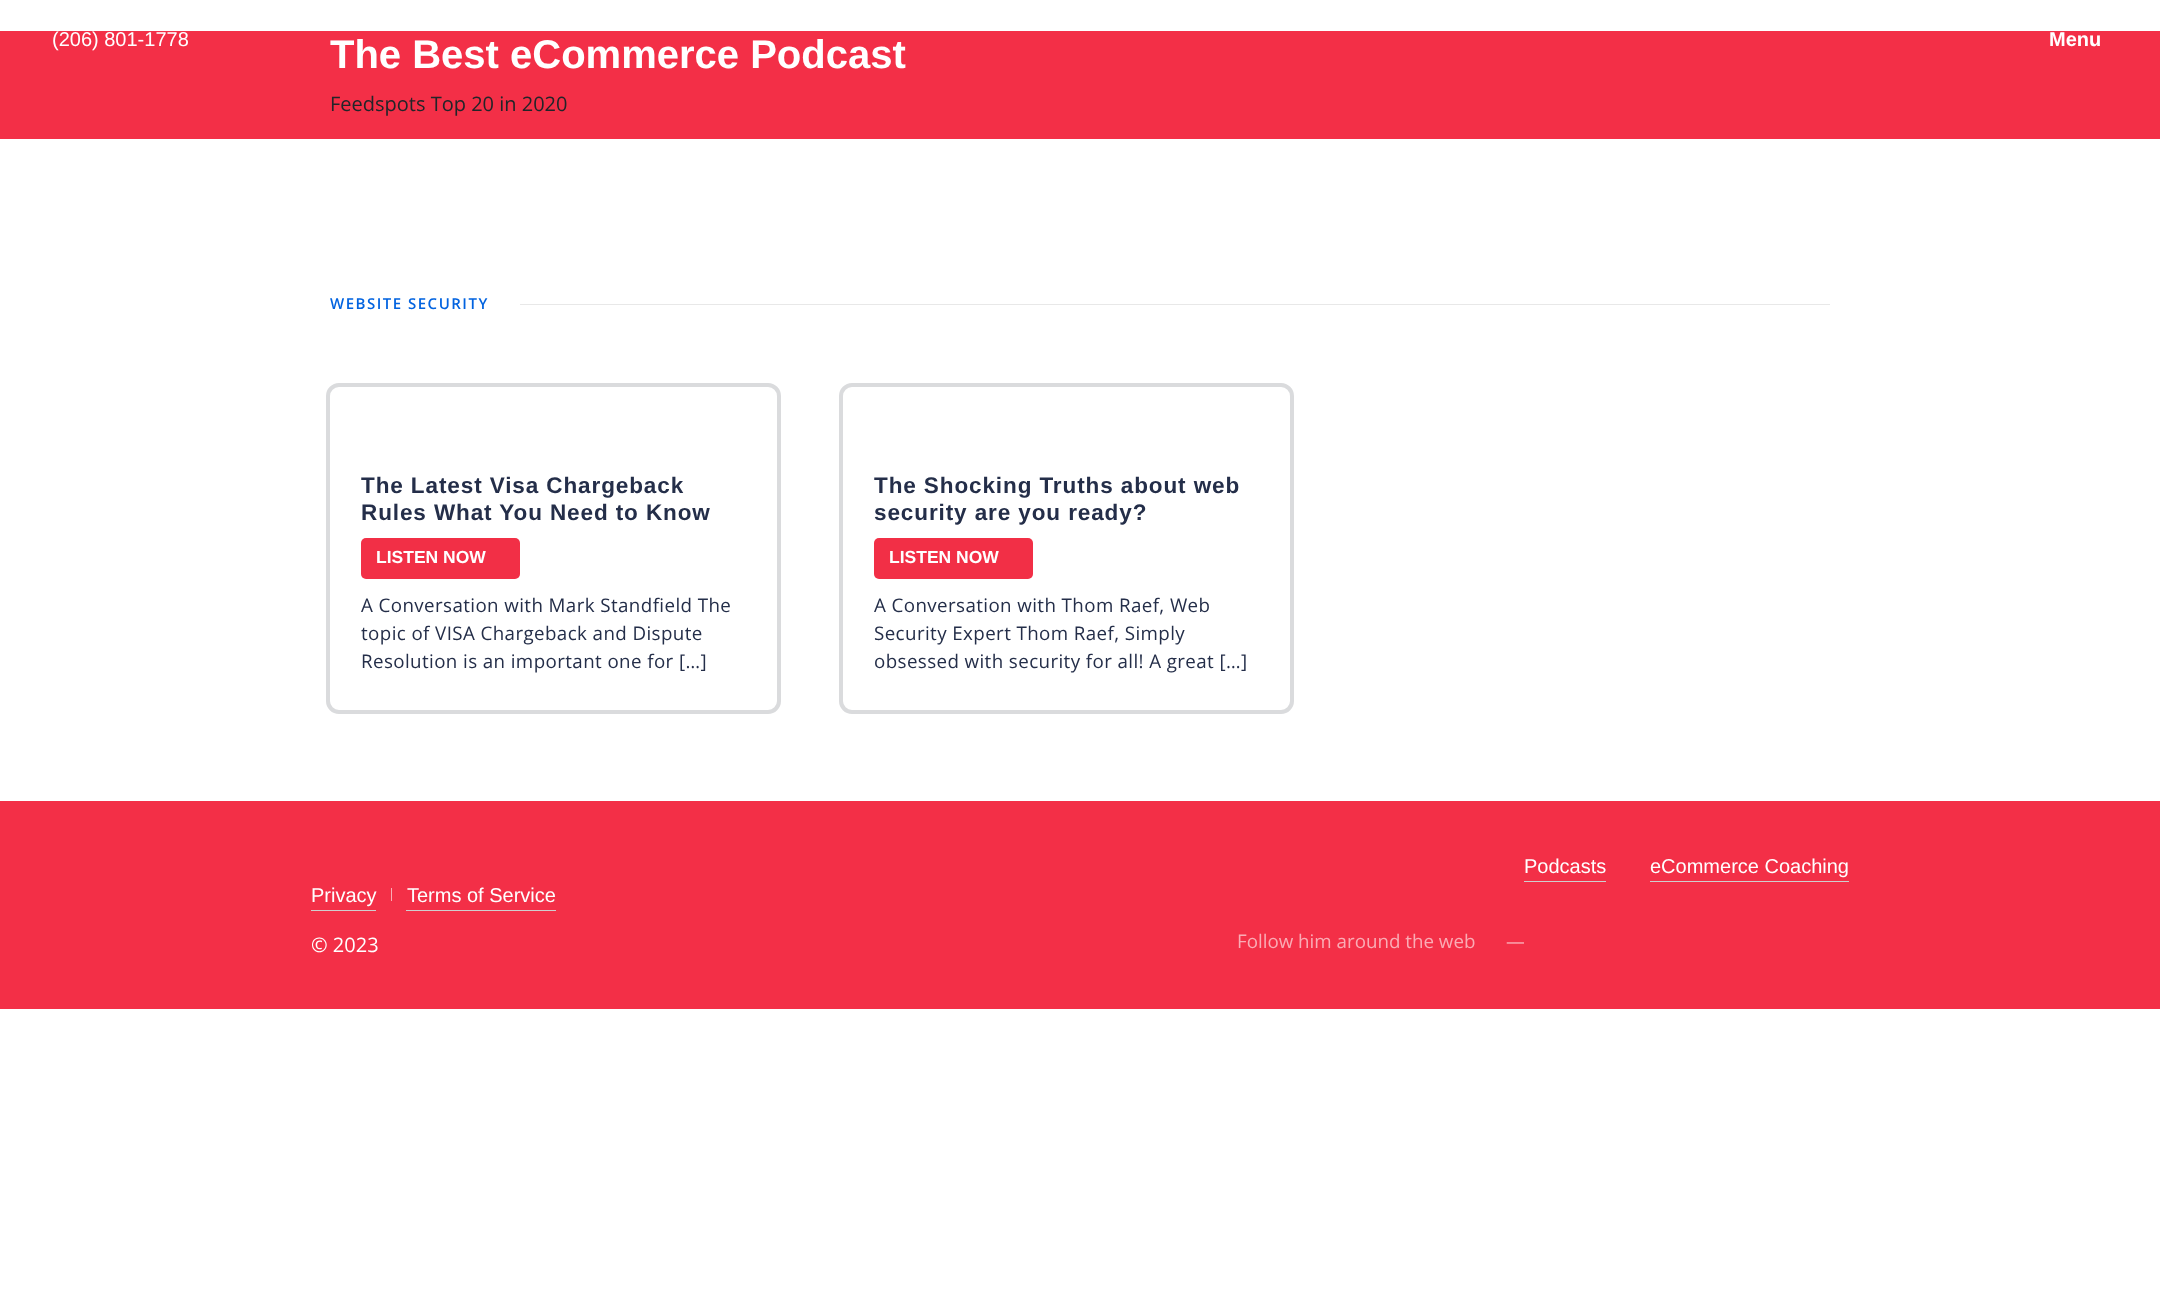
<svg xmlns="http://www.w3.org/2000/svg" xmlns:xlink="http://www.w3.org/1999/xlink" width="2160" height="1306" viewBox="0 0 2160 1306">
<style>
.cls-1{font:20px Liberation Sans;fill:#ffffff}
.cls-2{font:bold 20px Liberation Sans;fill:#ffffff}
.cls-3{font:bold 40px Liberation Sans;fill:#ffffff}
.cls-4{font:20px Open Sans;fill:#212529}
.cls-5{font:600 15px Open Sans;letter-spacing:1.5px;fill:#0263e0}
.cls-6{font:bold 22.5px Liberation Sans;letter-spacing:0.9px;fill:#242e49}
.cls-7{font:bold 17.5px Liberation Sans;fill:#ffffff}
.cls-8{font:18.75px Open Sans;letter-spacing:0.4px;fill:#242e49}
.cls-9{font:20px Open Sans;fill:#ffffff}
.cls-10{font:18.75px Open Sans;fill:#faacb5}
</style>
<rect width="100%" height="100%" fill="#ffffff"/>
<rect fill="#f32f47" x="0" y="31" width="2160" height="108"/>
<rect fill="#e8e8e8" x="520" y="304" width="1310" height="1"/>
<rect fill="none" stroke="#dadbdd" stroke-width="4" x="328" y="385" width="451" height="327" rx="11"/>
<rect fill="#f22f46" x="361" y="538" width="159" height="41" rx="5"/>
<rect fill="none" stroke="#dadbdd" stroke-width="4" x="841" y="385" width="451" height="327" rx="11"/>
<rect fill="#f22f46" x="874" y="538" width="159" height="41" rx="5"/>
<rect fill="#f32f47" x="0" y="801" width="2160" height="208"/>
<rect fill="#cecece" x="311" y="910" width="65" height="1"/>
<rect fill="#faacb5" x="391" y="888" width="1" height="13"/>
<rect fill="#cecece" x="406" y="910" width="150" height="1"/>
<rect fill="#cecece" x="1524" y="881" width="82" height="1"/>
<rect fill="#cecece" x="1650" y="881" width="199" height="1"/>
<text class="cls-1" x="52" y="46">(206) 801-1778</text>
<text class="cls-2" x="2049" y="46">Menu</text>
<text class="cls-3" x="330" y="68">The Best eCommerce Podcast</text>
<text class="cls-4" x="330" y="111">Feedspots Top 20 in 2020</text>
<text class="cls-5" x="330" y="309">WEBSITE SECURITY</text>
<text class="cls-6"><tspan x="361" y="493">The Latest Visa Chargeback</tspan><tspan x="361" y="520">Rules What You Need to Know</tspan></text>
<text class="cls-7" x="376" y="563">LISTEN NOW</text>
<text class="cls-8"><tspan x="361" y="612">A Conversation with Mark Standfield The</tspan><tspan x="361" y="640">topic of VISA Chargeback and Dispute</tspan><tspan x="361" y="668">Resolution is an important one for […]</tspan></text>
<text class="cls-6"><tspan x="874" y="493">The Shocking Truths about web</tspan><tspan x="874" y="520">security are you ready?</tspan></text>
<text class="cls-7" x="889" y="563">LISTEN NOW</text>
<text class="cls-8"><tspan x="874" y="612">A Conversation with Thom Raef, Web</tspan><tspan x="874" y="640">Security Expert Thom Raef, Simply</tspan><tspan x="874" y="668">obsessed with security for all! A great […]</tspan></text>
<text class="cls-1" x="311" y="902">Privacy</text>
<text class="cls-1" x="407" y="902">Terms of Service</text>
<text class="cls-9" x="311" y="952">© 2023</text>
<text class="cls-1" x="1524" y="873">Podcasts</text>
<text class="cls-1" x="1650" y="873">eCommerce Coaching</text>
<text class="cls-10" x="1237" y="948">Follow him around the web</text>
<text class="cls-10" x="1506" y="948">—</text>
</svg>
